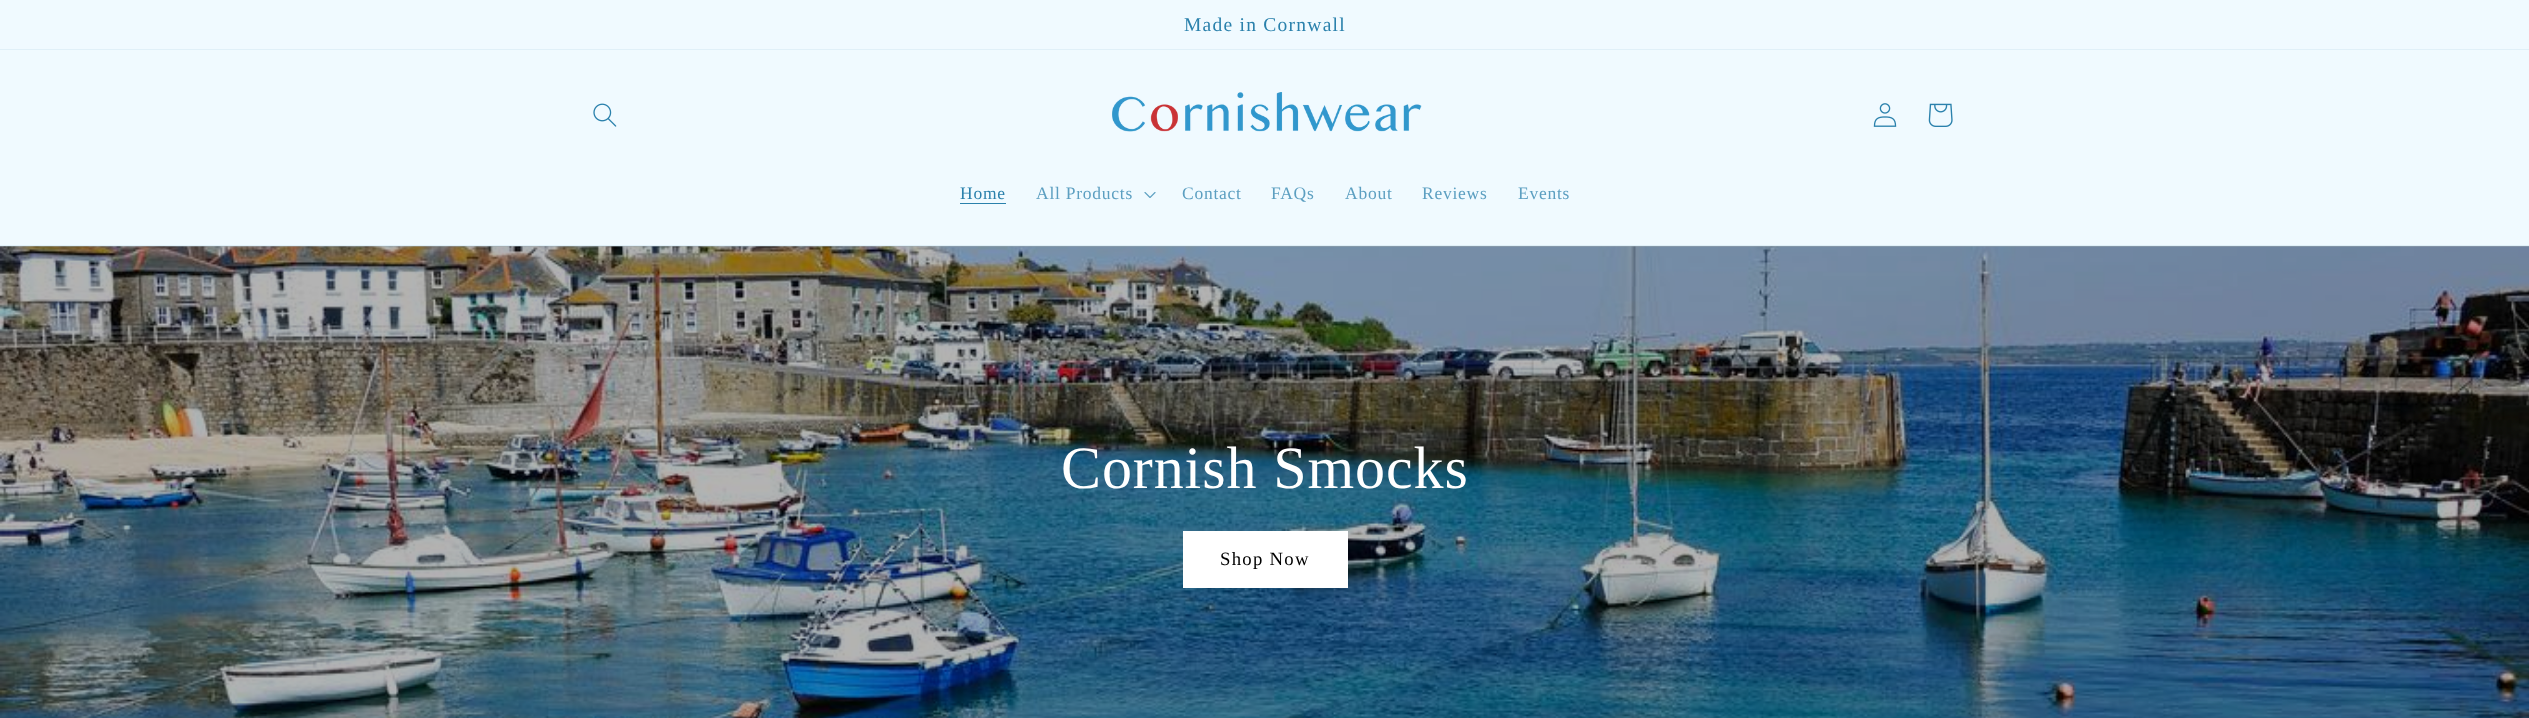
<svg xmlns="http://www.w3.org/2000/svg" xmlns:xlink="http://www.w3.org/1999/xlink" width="2529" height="718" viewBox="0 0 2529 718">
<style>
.cls-1{font:19.5px Liberation Serif;letter-spacing:1.25px;fill:#2a81ac}
.cls-2{font:17.5px Liberation Serif;letter-spacing:0.75px;fill:#2a81ac}
.cls-3{font:17.5px Liberation Serif;letter-spacing:0.75px;fill:#5c9fc1}
.cls-4{font:60px Liberation Serif;letter-spacing:0.9px;fill:#ffffff}
.cls-5{font:18.75px Liberation Serif;letter-spacing:1.25px;fill:#000000}
</style>
<rect width="100%" height="100%" fill="#f0faff"/>
<rect fill="#e0f0f8" x="0" y="49" width="2529" height="1"/>
<rect fill="#e0f0f8" x="0" y="245" width="2529" height="1"/>
<image xlink:href="image0.png" x="593" y="103" width="24" height="24"/>
<image xlink:href="image1.png" x="1112" y="92" width="310" height="40"/>
<image xlink:href="image2.png" x="1873" y="103" width="24" height="24"/>
<image xlink:href="image3.png" x="1928" y="103" width="25" height="24"/>
<rect fill="#2a81ac" x="960" y="203" width="46" height="1"/>
<image xlink:href="image4.png" x="1144" y="192" width="12" height="6"/>
<rect fill="#9ba8ae" x="0" y="246" width="2529" height="1"/>
<image xlink:href="image5.png" x="0" y="246" width="2529" height="472"/>
<rect fill="#ffffff" x="1183" y="531" width="165" height="57"/>
<text class="cls-1" x="1184" y="31">Made in Cornwall</text>
<text class="cls-2" x="960" y="199">Home</text>
<text class="cls-3" x="1036" y="199">All Products</text>
<text class="cls-3" x="1182" y="199">Contact</text>
<text class="cls-3" x="1271" y="199">FAQs</text>
<text class="cls-3" x="1345" y="199">About</text>
<text class="cls-3" x="1422" y="199">Reviews</text>
<text class="cls-3" x="1518" y="199">Events</text>
<text class="cls-4" x="1061" y="488">Cornish Smocks</text>
<text class="cls-5" x="1220" y="565">Shop Now</text>
</svg>
